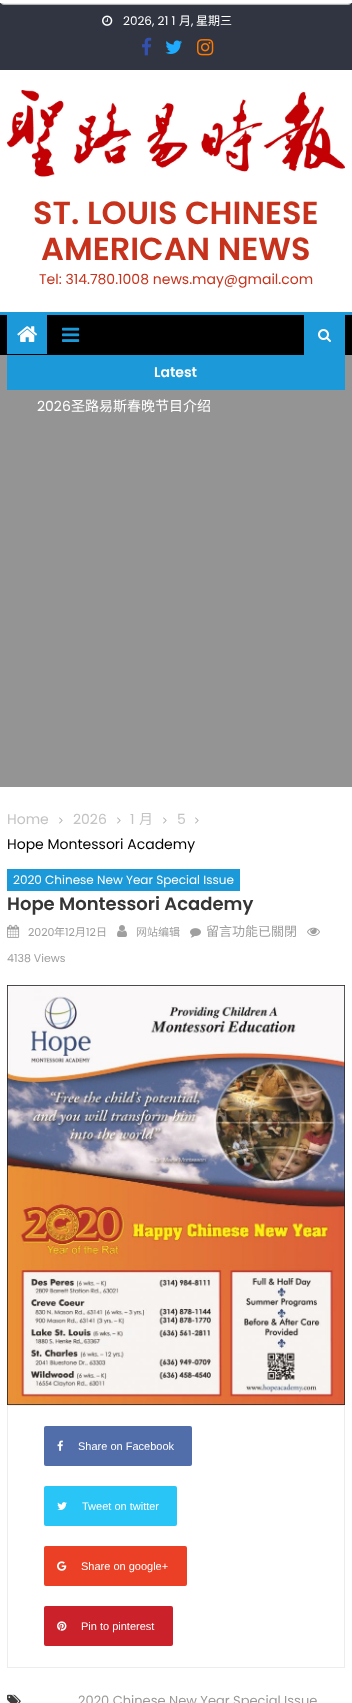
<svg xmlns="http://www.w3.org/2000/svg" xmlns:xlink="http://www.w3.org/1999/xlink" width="352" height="1703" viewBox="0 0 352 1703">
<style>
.cls-1{font:12px Poppins;fill:#ffffff}
.cls-2{font:12px Noto Sans CJK TC;fill:#ffffff}
.cls-3{font:600 32px Poppins;fill:#c6321b}
.cls-4{font:14px Poppins;fill:#c6321b}
.cls-5{font:600 14px Poppins;fill:#ffffff}
.cls-6{font:14px Poppins;fill:#ffffff}
.cls-7{font:14px Noto Sans CJK TC;fill:#ffffff}
.cls-8{font:14px Poppins;fill:#c3c3c3}
.cls-9{font:14px Noto Sans CJK TC;fill:#c3c3c3}
.cls-10{font:14px Poppins;fill:#000000}
.cls-11{font:600 18px Poppins;fill:#353535}
.cls-12{font:11px Poppins;fill:#9f9f9f}
.cls-13{font:11px Noto Sans CJK TC;fill:#9f9f9f}
.cls-14{font:13px Noto Sans CJK TC;fill:#9f9f9f}
.cls-15{font:11px Liberation Sans;fill:#ffffff}
.cls-16{font:13px Poppins;fill:#999999}
</style>
<rect width="100%" height="100%" fill="#ffffff"/>
<rect fill="#313541" x="0" y="3" width="352" height="67"/>
<rect fill="#efefef" stroke="#b2b2b2" x="0.5" y="-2.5" width="351" height="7" rx="3.5"/>
<rect fill="#ffffff" x="0" y="0" width="352" height="3"/>
<image xlink:href="image0.png" x="102" y="15" width="11" height="11"/>
<image xlink:href="image1.png" x="142" y="37" width="10" height="19"/>
<image xlink:href="image2.png" x="165" y="40" width="17" height="14"/>
<image xlink:href="image3.png" x="197" y="39" width="17" height="17"/>
<image xlink:href="image4.png" x="7" y="90" width="338" height="87"/>
<rect fill="#000000" x="0" y="315" width="352" height="40"/>
<rect fill="#1c99d8" x="0" y="312" width="352" height="3"/>
<rect fill="#1c99d8" x="7" y="315" width="40" height="39"/>
<image xlink:href="image5.png" x="17" y="326" width="21" height="16"/>
<image xlink:href="image6.png" x="62" y="327" width="18" height="15"/>
<rect fill="#1c99d8" x="304" y="315" width="41" height="40"/>
<image xlink:href="image7.png" x="318" y="329" width="13" height="13"/>
<rect fill="#949494" x="0" y="355" width="352" height="432"/>
<rect fill="#1c99d8" x="7" y="355" width="338" height="35"/>
<image xlink:href="image8.png" x="59" y="817" width="4" height="7"/>
<image xlink:href="image8.png" x="117" y="817" width="4" height="7"/>
<image xlink:href="image8.png" x="163" y="817" width="4" height="7"/>
<image xlink:href="image8.png" x="195" y="817" width="4" height="7"/>
<rect fill="#1c99d8" x="7" y="869" width="233" height="22"/>
<image xlink:href="image9.png" x="7" y="924" width="13" height="14"/>
<image xlink:href="image10.png" x="117" y="925" width="10" height="12"/>
<image xlink:href="image11.png" x="190" y="928" width="11" height="10"/>
<image xlink:href="image12.png" x="307" y="927" width="13" height="9"/>
<image xlink:href="image13.png" x="7" y="985" width="338" height="420"/>
<rect fill="none" stroke="#ededed" x="7.5" y="1405.5" width="337" height="262"/>
<rect fill="#516eab" x="44" y="1426" width="148" height="40" rx="2"/>
<image xlink:href="image14.png" x="57" y="1440" width="6" height="11"/>
<rect fill="#29c5f6" x="44" y="1486" width="133" height="40" rx="2"/>
<image xlink:href="image15.png" x="57" y="1502" width="10" height="8"/>
<rect fill="#eb4026" x="44" y="1546" width="143" height="40" rx="2"/>
<image xlink:href="image16.png" x="57" y="1561" width="10" height="10"/>
<rect fill="#ca212a" x="44" y="1606" width="129" height="40" rx="2"/>
<image xlink:href="image17.png" x="57" y="1621" width="10" height="10"/>
<image xlink:href="image18.png" x="7" y="1694" width="14" height="9"/>
<text class="cls-1" x="123" y="25">2026, 21 1</text>
<text class="cls-2" x="179" y="25">月</text>
<text class="cls-1" x="191" y="25">,</text>
<text class="cls-2" x="196" y="25">星期三</text>
<text class="cls-3" x="33" y="224">ST. LOUIS CHINESE</text>
<text class="cls-3" x="41" y="260">AMERICAN NEWS</text>
<text class="cls-4" x="39" y="284">Tel: 314.780.1008 news.may@gmail.com</text>
<text class="cls-5" x="154" y="377">Latest</text>
<text class="cls-6" x="37" y="411">2026</text>
<text class="cls-7" x="71" y="411">圣路易斯春晚节目介绍</text>
<text class="cls-8" x="7" y="824">Home</text>
<text class="cls-8" x="73" y="824">2026</text>
<text class="cls-8" x="130" y="824">1</text>
<text class="cls-9" x="139" y="824">月</text>
<text class="cls-8" x="177" y="824">5</text>
<text class="cls-10" x="7" y="849">Hope Montessori Academy</text>
<text class="cls-1" x="13" y="884">2020 Chinese New Year Special Issue</text>
<text class="cls-11" x="7" y="910">Hope Montessori Academy</text>
<text class="cls-12" x="28" y="936">2020</text>
<text class="cls-13" x="54" y="936">年</text>
<text class="cls-12" x="65" y="936">12</text>
<text class="cls-13" x="75" y="936">月</text>
<text class="cls-12" x="86" y="936">12</text>
<text class="cls-13" x="96" y="936">日</text>
<text class="cls-13" x="136" y="936">网站编辑</text>
<text class="cls-14" x="206" y="936">留言功能已關閉</text>
<text class="cls-12" x="7" y="962">4138 Views</text>
<text class="cls-15" x="78" y="1450">Share on Facebook</text>
<text class="cls-15" x="82" y="1510">Tweet on twitter</text>
<text class="cls-15" x="81" y="1570">Share on google+</text>
<text class="cls-15" x="81" y="1630">Pin to pinterest</text>
<text class="cls-16" x="78" y="1705">2020 Chinese New Year Special Issue</text>
</svg>
